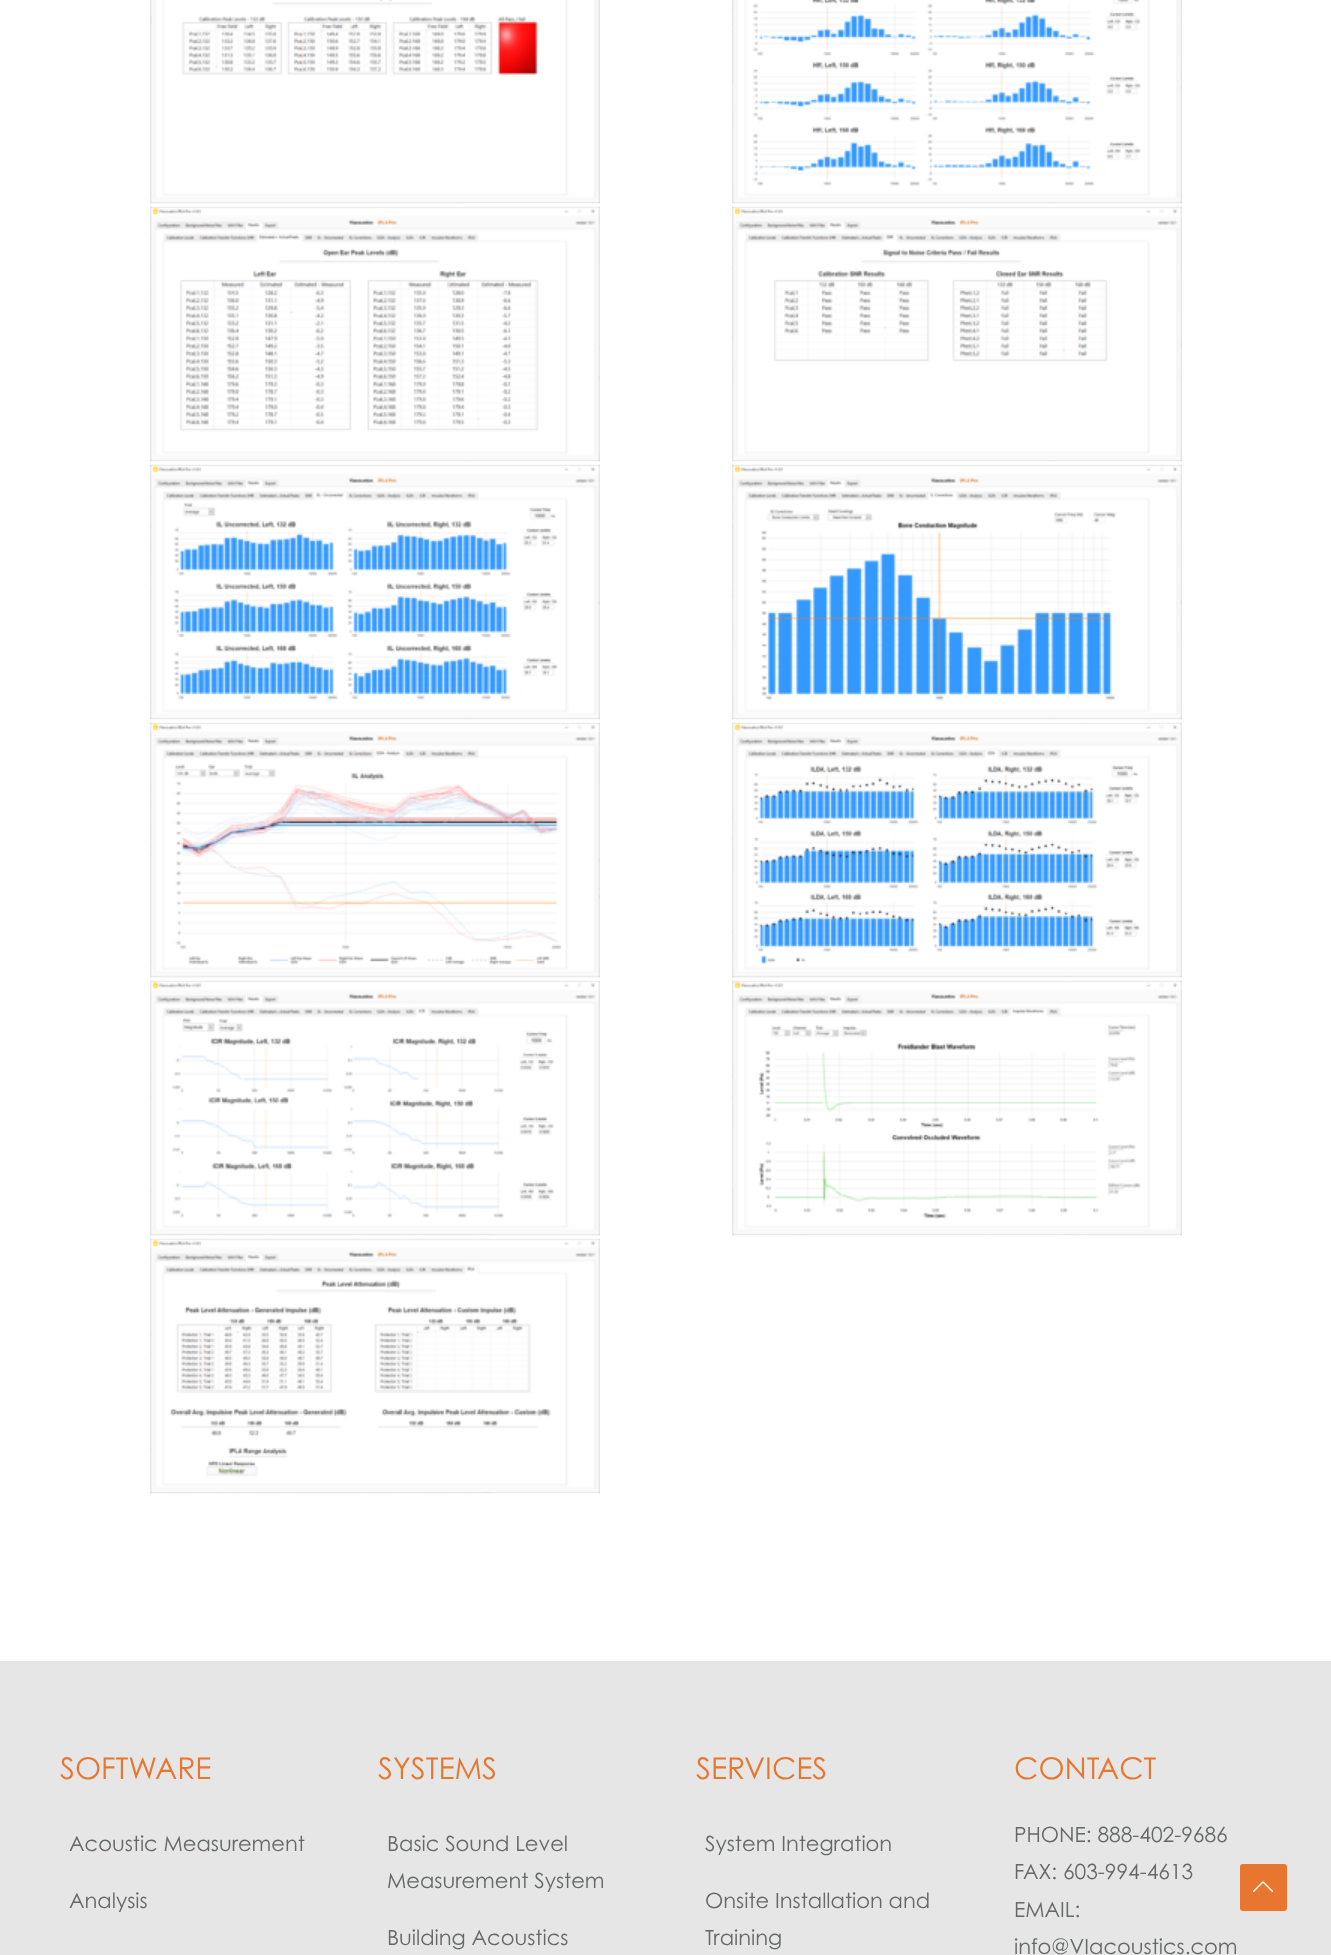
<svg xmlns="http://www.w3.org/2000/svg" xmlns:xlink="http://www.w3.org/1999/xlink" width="1331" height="1955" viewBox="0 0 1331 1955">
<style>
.cls-1{font:30px Century Gothic;fill:#e9762e}
.cls-2{font:21px Century Gothic;fill:#646869}
</style>
<rect width="100%" height="100%" fill="#ffffff"/>
<image xlink:href="image0.png" x="150" y="0" width="450" height="204"/>
<image xlink:href="image1.png" x="732" y="0" width="450" height="204"/>
<image xlink:href="image2.png" x="150" y="206" width="450" height="256"/>
<image xlink:href="image3.png" x="732" y="206" width="450" height="256"/>
<image xlink:href="image4.png" x="150" y="464" width="450" height="256"/>
<image xlink:href="image5.png" x="732" y="464" width="450" height="256"/>
<image xlink:href="image6.png" x="150" y="722" width="450" height="256"/>
<image xlink:href="image7.png" x="732" y="722" width="450" height="256"/>
<image xlink:href="image8.png" x="150" y="980" width="450" height="256"/>
<image xlink:href="image9.png" x="732" y="980" width="450" height="256"/>
<image xlink:href="image10.png" x="150" y="1238" width="450" height="256"/>
<rect fill="#e6e6e6" x="0" y="1661" width="1331" height="294"/>
<path fill="#e9762e" d="M1284 1911H1243C1241 1911 1240 1910 1240 1908V1867C1240 1865 1241 1864 1243 1864H1284C1286 1864 1287 1865 1287 1867V1908C1287 1910 1286 1911 1284 1911Z"/>
<image xlink:href="image11.png" x="1252" y="1881" width="22" height="11"/>
<text class="cls-1" x="60" y="1779">SOFTWARE</text>
<text class="cls-2" x="69" y="1851">Acoustic Measurement</text>
<text class="cls-2" x="69" y="1908">Analysis</text>
<text class="cls-1" x="378" y="1779">SYSTEMS</text>
<text class="cls-2"><tspan x="387" y="1851">Basic Sound Level</tspan><tspan x="387" y="1888">Measurement System</tspan></text>
<text class="cls-2" x="387" y="1945">Building Acoustics</text>
<text class="cls-1" x="696" y="1779">SERVICES</text>
<text class="cls-2" x="705" y="1851">System Integration</text>
<text class="cls-2"><tspan x="705" y="1908">Onsite Installation and</tspan><tspan x="705" y="1945">Training</tspan></text>
<text class="cls-1" x="1014" y="1779">CONTACT</text>
<text class="cls-2"><tspan x="1014" y="1842">PHONE: 888-402-9686</tspan><tspan x="1014" y="1879">FAX: 603-994-4613</tspan><tspan x="1014" y="1917">EMAIL:</tspan><tspan x="1014" y="1954">info@VIacoustics.com</tspan></text>
</svg>
